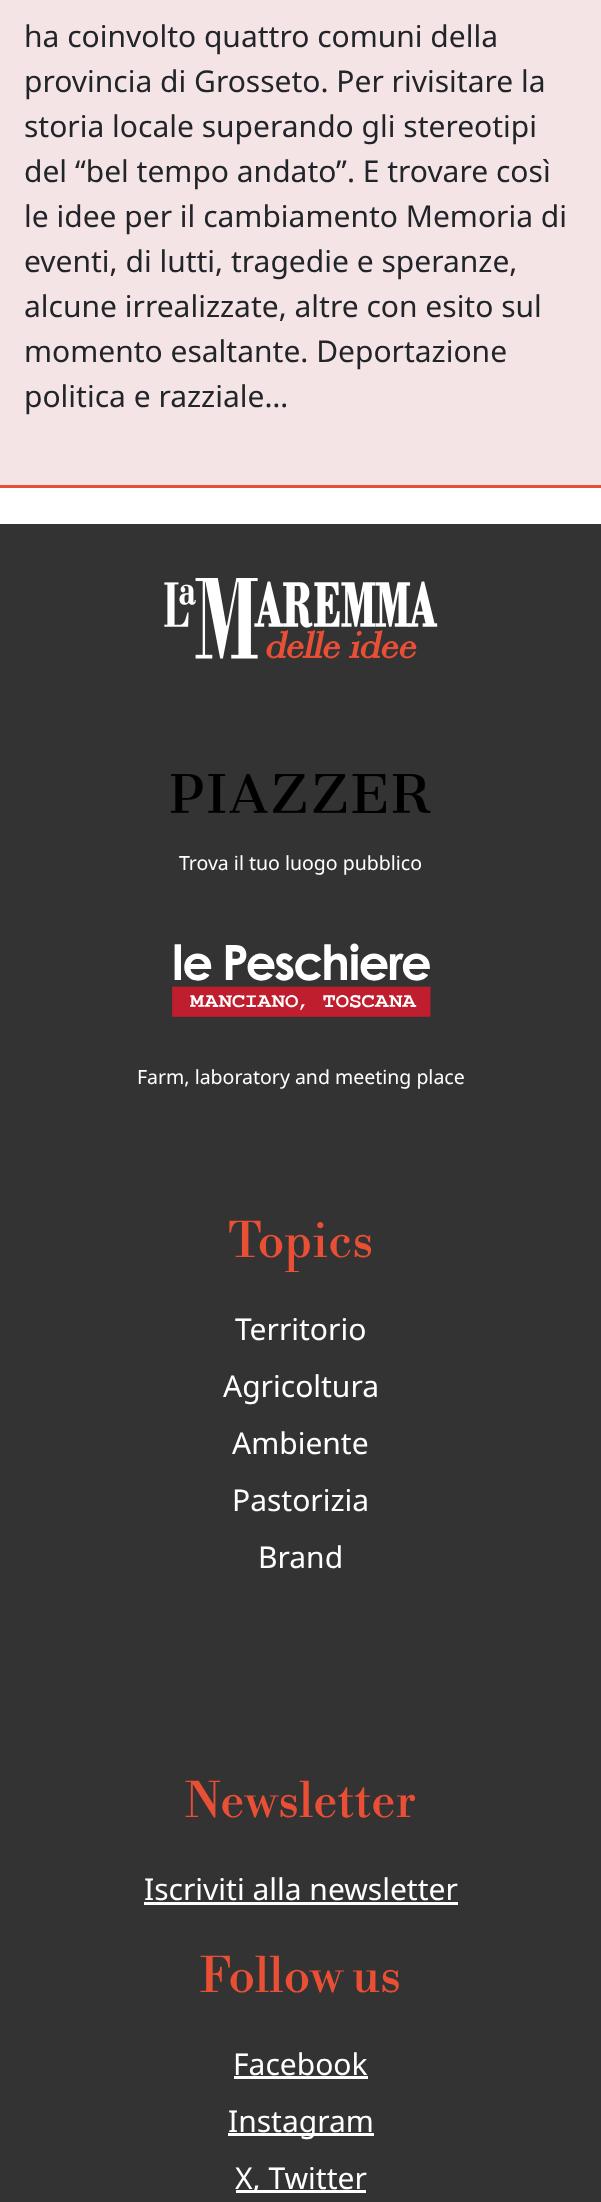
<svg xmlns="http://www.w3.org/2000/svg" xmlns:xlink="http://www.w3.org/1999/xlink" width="601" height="2202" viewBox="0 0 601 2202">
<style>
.cls-1{font:30px Noto Sans;fill:#212529}
.cls-2{font:19.5px Noto Sans;fill:#ffffff}
.cls-3{font:48px Libre Bodoni;fill:#e94f35}
.cls-4{font:30px Noto Sans;fill:#ffffff}
</style>
<rect width="100%" height="100%" fill="#ffffff"/>
<rect fill="#f5e4e5" x="0" y="0" width="601" height="485"/>
<rect fill="#e94f35" x="0" y="485" width="601" height="3"/>
<rect fill="#333333" x="0" y="524" width="601" height="1678"/>
<image xlink:href="image0.png" x="164" y="578" width="274" height="81"/>
<image xlink:href="image1.png" x="171" y="774" width="260" height="39"/>
<image xlink:href="image2.png" x="172" y="943" width="259" height="74"/>
<rect fill="#ffffff" x="144" y="1902" width="314" height="3"/>
<rect fill="#ffffff" x="234" y="2076" width="134" height="3"/>
<rect fill="#ffffff" x="228" y="2133" width="146" height="3"/>
<rect fill="#ffffff" x="236" y="2190" width="130" height="3"/>
<text class="cls-1"><tspan x="24" y="47">ha coinvolto quattro comuni della</tspan><tspan x="24" y="92">provincia di Grosseto. Per rivisitare la</tspan><tspan x="24" y="137">storia locale superando gli stereotipi</tspan><tspan x="24" y="182">del “bel tempo andato”. E trovare così</tspan><tspan x="24" y="227">le idee per il cambiamento Memoria di</tspan><tspan x="24" y="272">eventi, di lutti, tragedie e speranze,</tspan><tspan x="24" y="317">alcune irrealizzate, altre con esito sul</tspan><tspan x="24" y="362">momento esaltante. Deportazione</tspan><tspan x="24" y="407">politica e razziale…</tspan></text>
<text class="cls-2" x="179" y="870">Trova il tuo luogo pubblico</text>
<text class="cls-2" x="137" y="1084">Farm, laboratory and meeting place</text>
<text class="cls-3" x="228" y="1257">Topics</text>
<text class="cls-4" x="235" y="1340">Territorio</text>
<text class="cls-4" x="223" y="1397">Agricoltura</text>
<text class="cls-4"><tspan x="232" y="1454">Ambiente</tspan><tspan x="232" y="1511">Pastorizia</tspan></text>
<text class="cls-4" x="258" y="1568">Brand</text>
<text class="cls-3" x="185" y="1817">Newsletter</text>
<text class="cls-4" x="144" y="1900">Iscriviti alla newsletter</text>
<text class="cls-3" x="200" y="1992">Follow us</text>
<text class="cls-4" x="233" y="2075">Facebook</text>
<text class="cls-4" x="228" y="2132">Instagram</text>
<text class="cls-4" x="235" y="2189">X, Twitter</text>
</svg>
